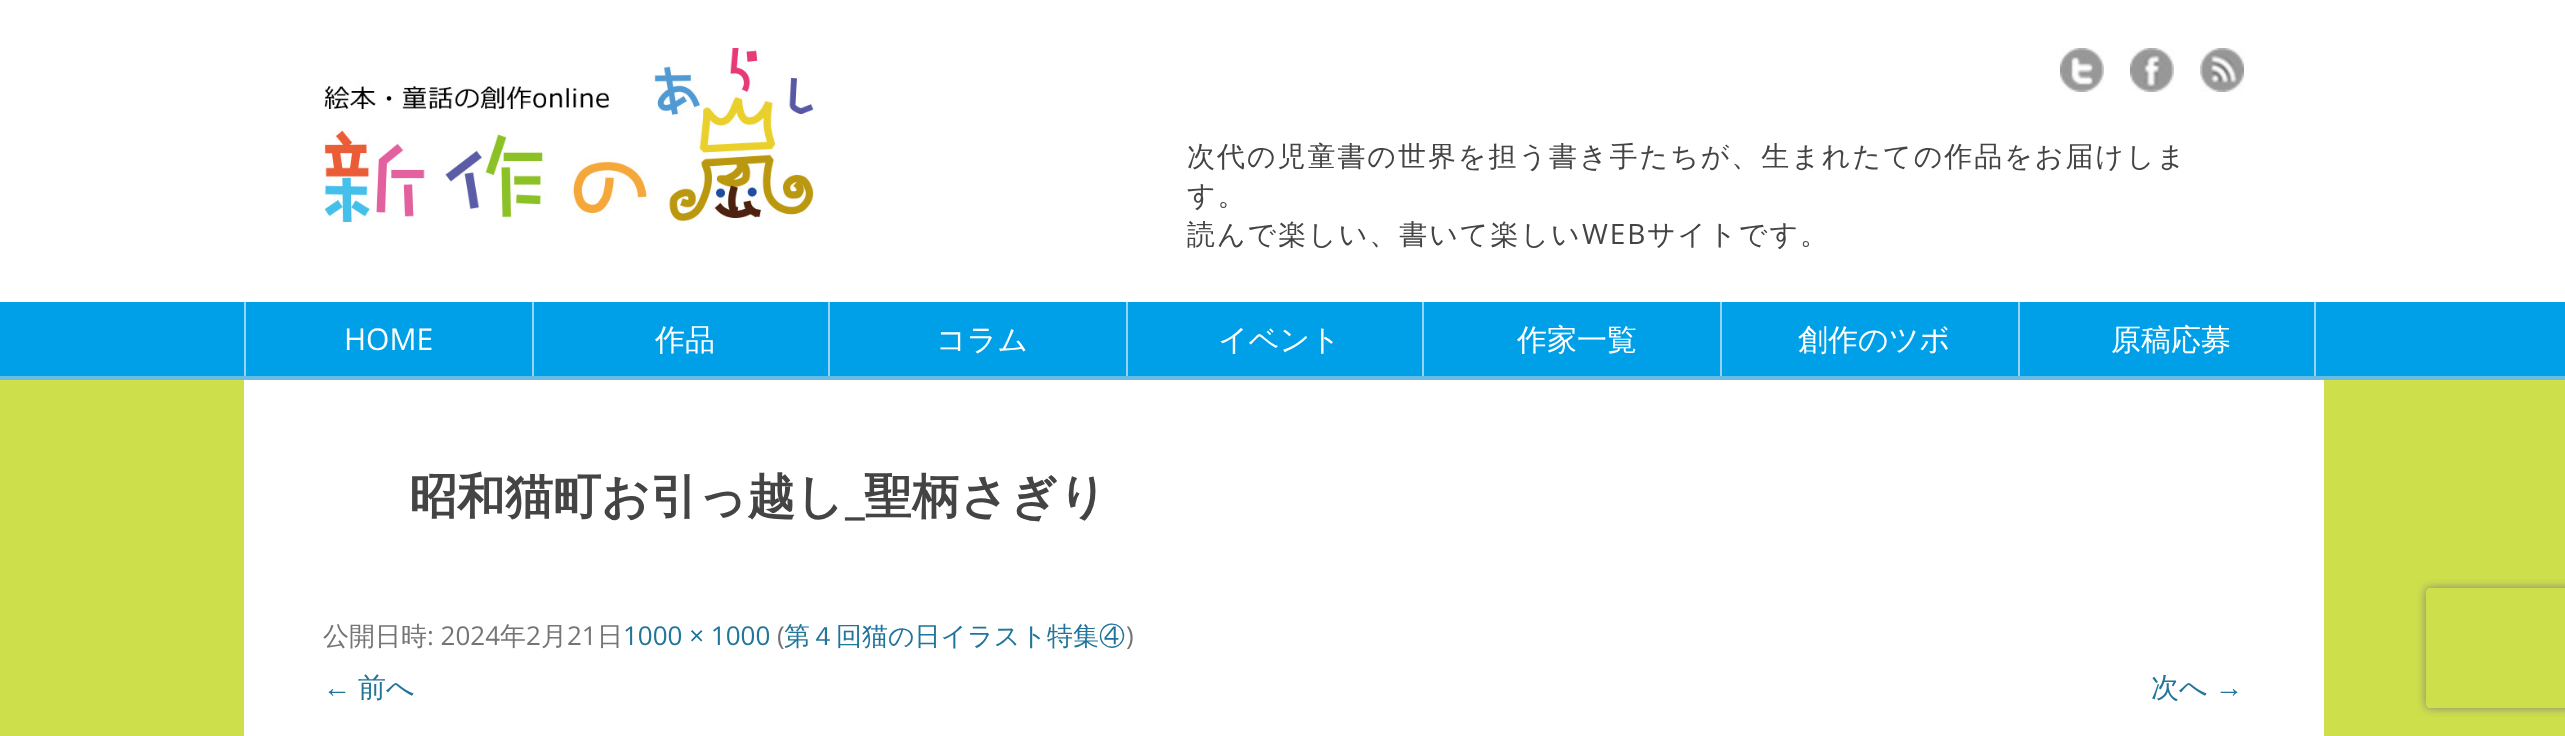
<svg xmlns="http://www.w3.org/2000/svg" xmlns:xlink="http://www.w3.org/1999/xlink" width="2565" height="736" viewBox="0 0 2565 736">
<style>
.cls-1{font:500 28px WenQuanYi Zen Hei;letter-spacing:1.95px;fill:#444444}
.cls-2{font:28px Open Sans;letter-spacing:1.95px;fill:#444444}
.cls-3{font:30px Open Sans;fill:#ffffff}
.cls-4{font:500 30px WenQuanYi Zen Hei;fill:#ffffff}
.cls-5{font:bold 48px WenQuanYi Zen Hei;fill:#444444}
.cls-6{font:bold 48px Open Sans;fill:#444444}
.cls-7{font:500 26px WenQuanYi Zen Hei;fill:#757575}
.cls-8{font:26px Open Sans;fill:#757575}
.cls-9{font:26px Open Sans;fill:#21759b}
.cls-10{font:500 26px WenQuanYi Zen Hei;fill:#21759b}
.cls-11{font:28px Liberation Sans;fill:#21759b}
.cls-12{font:500 28px WenQuanYi Zen Hei;fill:#21759b}
</style>
<defs>
<clipPath id="clip1"><path d="M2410 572H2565V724H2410ZM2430 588H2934C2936 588 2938 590 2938 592V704C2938 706 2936 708 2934 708H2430C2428 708 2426 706 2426 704V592C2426 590 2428 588 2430 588Z" clip-rule="evenodd"/></clipPath>
</defs>
<rect width="100%" height="100%" fill="#cde04b"/>
<rect fill="#ffffff" x="0" y="0" width="2565" height="302"/>
<image xlink:href="image0.png" x="324" y="48" width="490" height="174"/>
<image xlink:href="image1.png" x="2060" y="48" width="44" height="44"/>
<image xlink:href="image2.png" x="2130" y="48" width="44" height="44"/>
<image xlink:href="image3.png" x="2200" y="48" width="44" height="44"/>
<rect fill="#00a0e9" x="0" y="302" width="2565" height="74"/>
<rect fill="#69bce2" x="0" y="376" width="2565" height="4"/>
<rect fill="#93d5f3" x="244" y="302" width="2" height="74"/>
<rect fill="#93d5f3" x="532" y="302" width="2" height="74"/>
<rect fill="#93d5f3" x="828" y="302" width="2" height="74"/>
<rect fill="#93d5f3" x="1126" y="302" width="2" height="74"/>
<rect fill="#93d5f3" x="1422" y="302" width="2" height="74"/>
<rect fill="#93d5f3" x="1720" y="302" width="2" height="74"/>
<rect fill="#93d5f3" x="2018" y="302" width="2" height="74"/>
<rect fill="#93d5f3" x="2314" y="302" width="2" height="74"/>
<rect fill="#ffffff" x="244" y="380" width="2080" height="356"/>
<g clip-path="url(#clip1)">
<rect fill="#808080" filter="blur(5px)" x="2426" y="588" width="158" height="120" rx="4"/>
</g>
<text class="cls-1"><tspan x="1187" y="166">次代の児童書の世界を担う書き手たちが、生まれたての作品をお届けしま</tspan><tspan x="1187" y="205">す。</tspan><tspan x="1187" y="244">読んで楽しい、書いて楽しい</tspan></text>
<text class="cls-2" x="1582" y="244">WEB</text>
<text class="cls-1" x="1647" y="244">サイトです。</text>
<text class="cls-3" x="344" y="350">HOME</text>
<text class="cls-4" x="655" y="350">作品</text>
<text class="cls-4" x="936" y="350">コラム</text>
<text class="cls-4" x="1218" y="350">イベント</text>
<text class="cls-4" x="1517" y="350">作家一覧</text>
<text class="cls-4" x="1798" y="350">創作のツボ</text>
<text class="cls-4" x="2111" y="350">原稿応募</text>
<text class="cls-5" x="409" y="513">昭和猫町お引っ越し</text>
<text class="cls-6" x="845" y="513">_</text>
<text class="cls-5" x="864" y="513">聖柄さぎり</text>
<text class="cls-7" x="323" y="645">公開日時</text>
<text class="cls-8" x="427" y="645">: 2024</text>
<text class="cls-7" x="500" y="645">年</text>
<text class="cls-8" x="526" y="645">2</text>
<text class="cls-7" x="541" y="645">月</text>
<text class="cls-8" x="567" y="645">21</text>
<text class="cls-7" x="597" y="645">日</text>
<text class="cls-9" x="623" y="645">1000 × 1000</text>
<text class="cls-8" x="777" y="645">(</text>
<text class="cls-10" x="784" y="645">第４回猫の日イラスト特集④</text>
<text class="cls-8" x="1126" y="645">)</text>
<text class="cls-11" x="323" y="697">←</text>
<text class="cls-12" x="358" y="697">前へ</text>
<text class="cls-12" x="2151" y="697">次へ</text>
<text class="cls-11" x="2215" y="697">→</text>
</svg>
